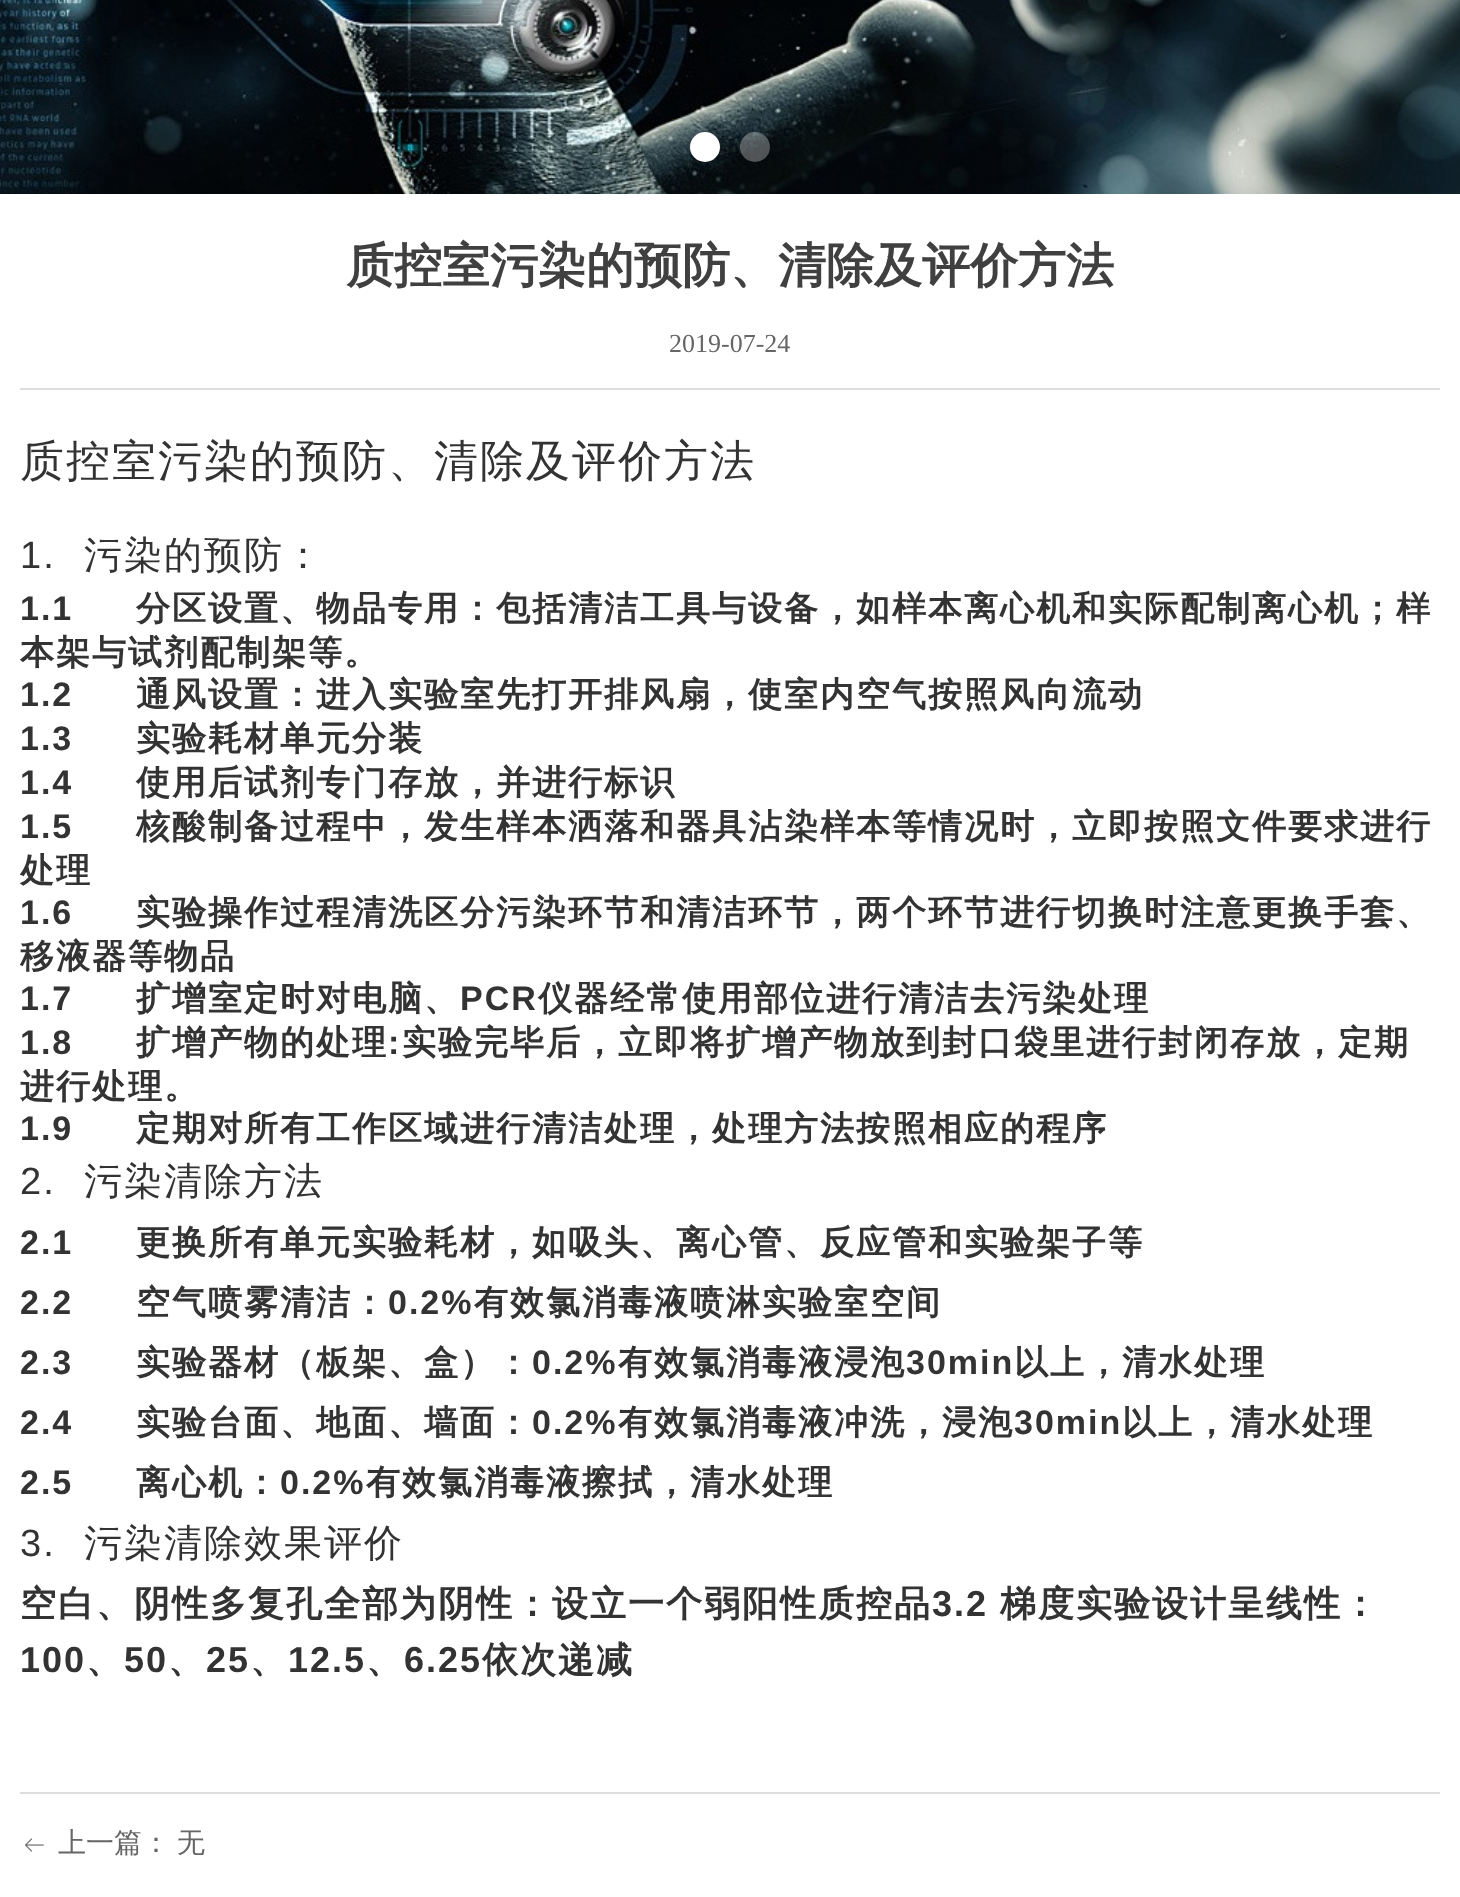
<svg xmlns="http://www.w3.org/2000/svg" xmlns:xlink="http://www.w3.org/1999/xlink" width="1460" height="1897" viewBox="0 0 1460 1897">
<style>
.cls-1{font:bold 48px WenQuanYi Zen Hei;fill:#404040}
.cls-2{font:26px Liberation Serif;fill:#666666}
.cls-3{font:500 44px WenQuanYi Zen Hei;letter-spacing:2px;fill:#333333}
.cls-4{font:38px Liberation Sans;letter-spacing:2px;fill:#333333}
.cls-5{font:500 38px WenQuanYi Zen Hei;letter-spacing:2px;fill:#333333}
.cls-6{font:bold 34px Liberation Sans;letter-spacing:2px;fill:#333333}
.cls-7{font:bold 34px WenQuanYi Zen Hei;letter-spacing:2px;fill:#333333}
.cls-8{font:bold 36px WenQuanYi Zen Hei;letter-spacing:2px;fill:#333333}
.cls-9{font:bold 36px Liberation Sans;letter-spacing:2px;fill:#333333}
.cls-10{font:500 28px WenQuanYi Zen Hei;fill:#666666}
</style>
<rect width="100%" height="100%" fill="#ffffff"/>
<image xlink:href="image0.png" x="0" y="0" width="1460" height="194"/>
<circle fill="#ffffff" cx="705" cy="147" r="15"/>
<circle fill="#ffffff" fill-opacity="0.3" cx="755" cy="147" r="15"/>
<rect fill="#dddddd" x="20" y="388" width="1420" height="2"/>
<rect fill="#dddddd" x="20" y="1792" width="1420" height="2"/>
<image xlink:href="image1.png" x="25" y="1838" width="19" height="14"/>
<text class="cls-1" x="346" y="282">质控室污染的预防、清除及评价方法</text>
<text class="cls-2" x="669" y="352">2019-07-24</text>
<text class="cls-3" x="20" y="476">质控室污染的预防、清除及评价方法</text>
<text class="cls-4" x="20" y="568">1.</text>
<text class="cls-5" x="84" y="568">污染的预防：</text>
<text class="cls-6" x="20" y="620">1.1</text>
<text class="cls-7" x="136" y="620">分区设置、物品专用：包括清洁工具与设备，如样本离心机和实际配制离心机；样</text>
<text class="cls-7" x="20" y="664">本架与试剂配制架等。</text>
<text class="cls-6" x="20" y="706">1.2</text>
<text class="cls-7" x="136" y="706">通风设置：进入实验室先打开排风扇，使室内空气按照风向流动</text>
<text class="cls-6" x="20" y="750">1.3</text>
<text class="cls-7" x="136" y="750">实验耗材单元分装</text>
<text class="cls-6" x="20" y="794">1.4</text>
<text class="cls-7" x="136" y="794">使用后试剂专门存放，并进行标识</text>
<text class="cls-6" x="20" y="838">1.5</text>
<text class="cls-7" x="136" y="838">核酸制备过程中，发生样本洒落和器具沾染样本等情况时，立即按照文件要求进行</text>
<text class="cls-7" x="20" y="882">处理</text>
<text class="cls-6" x="20" y="924">1.6</text>
<text class="cls-7" x="136" y="924">实验操作过程清洗区分污染环节和清洁环节，两个环节进行切换时注意更换手套、</text>
<text class="cls-7" x="20" y="968">移液器等物品</text>
<text class="cls-6" x="20" y="1010">1.7</text>
<text class="cls-7" x="136" y="1010">扩增室定时对电脑、</text>
<text class="cls-6" x="460" y="1010">PCR</text>
<text class="cls-7" x="538" y="1010">仪器经常使用部位进行清洁去污染处理</text>
<text class="cls-6" x="20" y="1054">1.8</text>
<text class="cls-7" x="136" y="1054">扩增产物的处理</text>
<text class="cls-6" x="388" y="1054">:</text>
<text class="cls-7" x="402" y="1054">实验完毕后，立即将扩增产物放到封口袋里进行封闭存放，定期</text>
<text class="cls-7" x="20" y="1098">进行处理。</text>
<text class="cls-6" x="20" y="1140">1.9</text>
<text class="cls-7" x="136" y="1140">定期对所有工作区域进行清洁处理，处理方法按照相应的程序</text>
<text class="cls-4" x="20" y="1194">2.</text>
<text class="cls-5" x="84" y="1194">污染清除方法</text>
<text class="cls-6" x="20" y="1254">2.1</text>
<text class="cls-7" x="136" y="1254">更换所有单元实验耗材，如吸头、离心管、反应管和实验架子等</text>
<text class="cls-6" x="20" y="1314">2.2</text>
<text class="cls-7" x="136" y="1314">空气喷雾清洁：</text>
<text class="cls-6" x="388" y="1314">0.2%</text>
<text class="cls-7" x="474" y="1314">有效氯消毒液喷淋实验室空间</text>
<text class="cls-6" x="20" y="1374">2.3</text>
<text class="cls-7" x="136" y="1374">实验器材（板架、盒）：</text>
<text class="cls-6" x="532" y="1374">0.2%</text>
<text class="cls-7" x="618" y="1374">有效氯消毒液浸泡</text>
<text class="cls-6" x="906" y="1374">30min</text>
<text class="cls-7" x="1014" y="1374">以上，清水处理</text>
<text class="cls-6" x="20" y="1434">2.4</text>
<text class="cls-7" x="136" y="1434">实验台面、地面、墙面：</text>
<text class="cls-6" x="532" y="1434">0.2%</text>
<text class="cls-7" x="618" y="1434">有效氯消毒液冲洗，浸泡</text>
<text class="cls-6" x="1014" y="1434">30min</text>
<text class="cls-7" x="1122" y="1434">以上，清水处理</text>
<text class="cls-6" x="20" y="1494">2.5</text>
<text class="cls-7" x="136" y="1494">离心机：</text>
<text class="cls-6" x="280" y="1494">0.2%</text>
<text class="cls-7" x="366" y="1494">有效氯消毒液擦拭，清水处理</text>
<text class="cls-4" x="20" y="1556">3.</text>
<text class="cls-5" x="84" y="1556">污染清除效果评价</text>
<text class="cls-8" x="20" y="1616">空白、阴性多复孔全部为阴性：设立一个弱阳性质控品</text>
<text class="cls-9" x="932" y="1616">3.2</text>
<text class="cls-8" x="1000" y="1616">梯度实验设计呈线性：</text>
<text class="cls-9" x="20" y="1672">100</text>
<text class="cls-8" x="86" y="1672">、</text>
<text class="cls-9" x="124" y="1672">50</text>
<text class="cls-8" x="168" y="1672">、</text>
<text class="cls-9" x="206" y="1672">25</text>
<text class="cls-8" x="250" y="1672">、</text>
<text class="cls-9" x="288" y="1672">12.5</text>
<text class="cls-8" x="366" y="1672">、</text>
<text class="cls-9" x="404" y="1672">6.25</text>
<text class="cls-8" x="482" y="1672">依次递减</text>
<text class="cls-10" x="58" y="1852">上一篇：</text>
<text class="cls-10" x="177" y="1852">无</text>
</svg>
